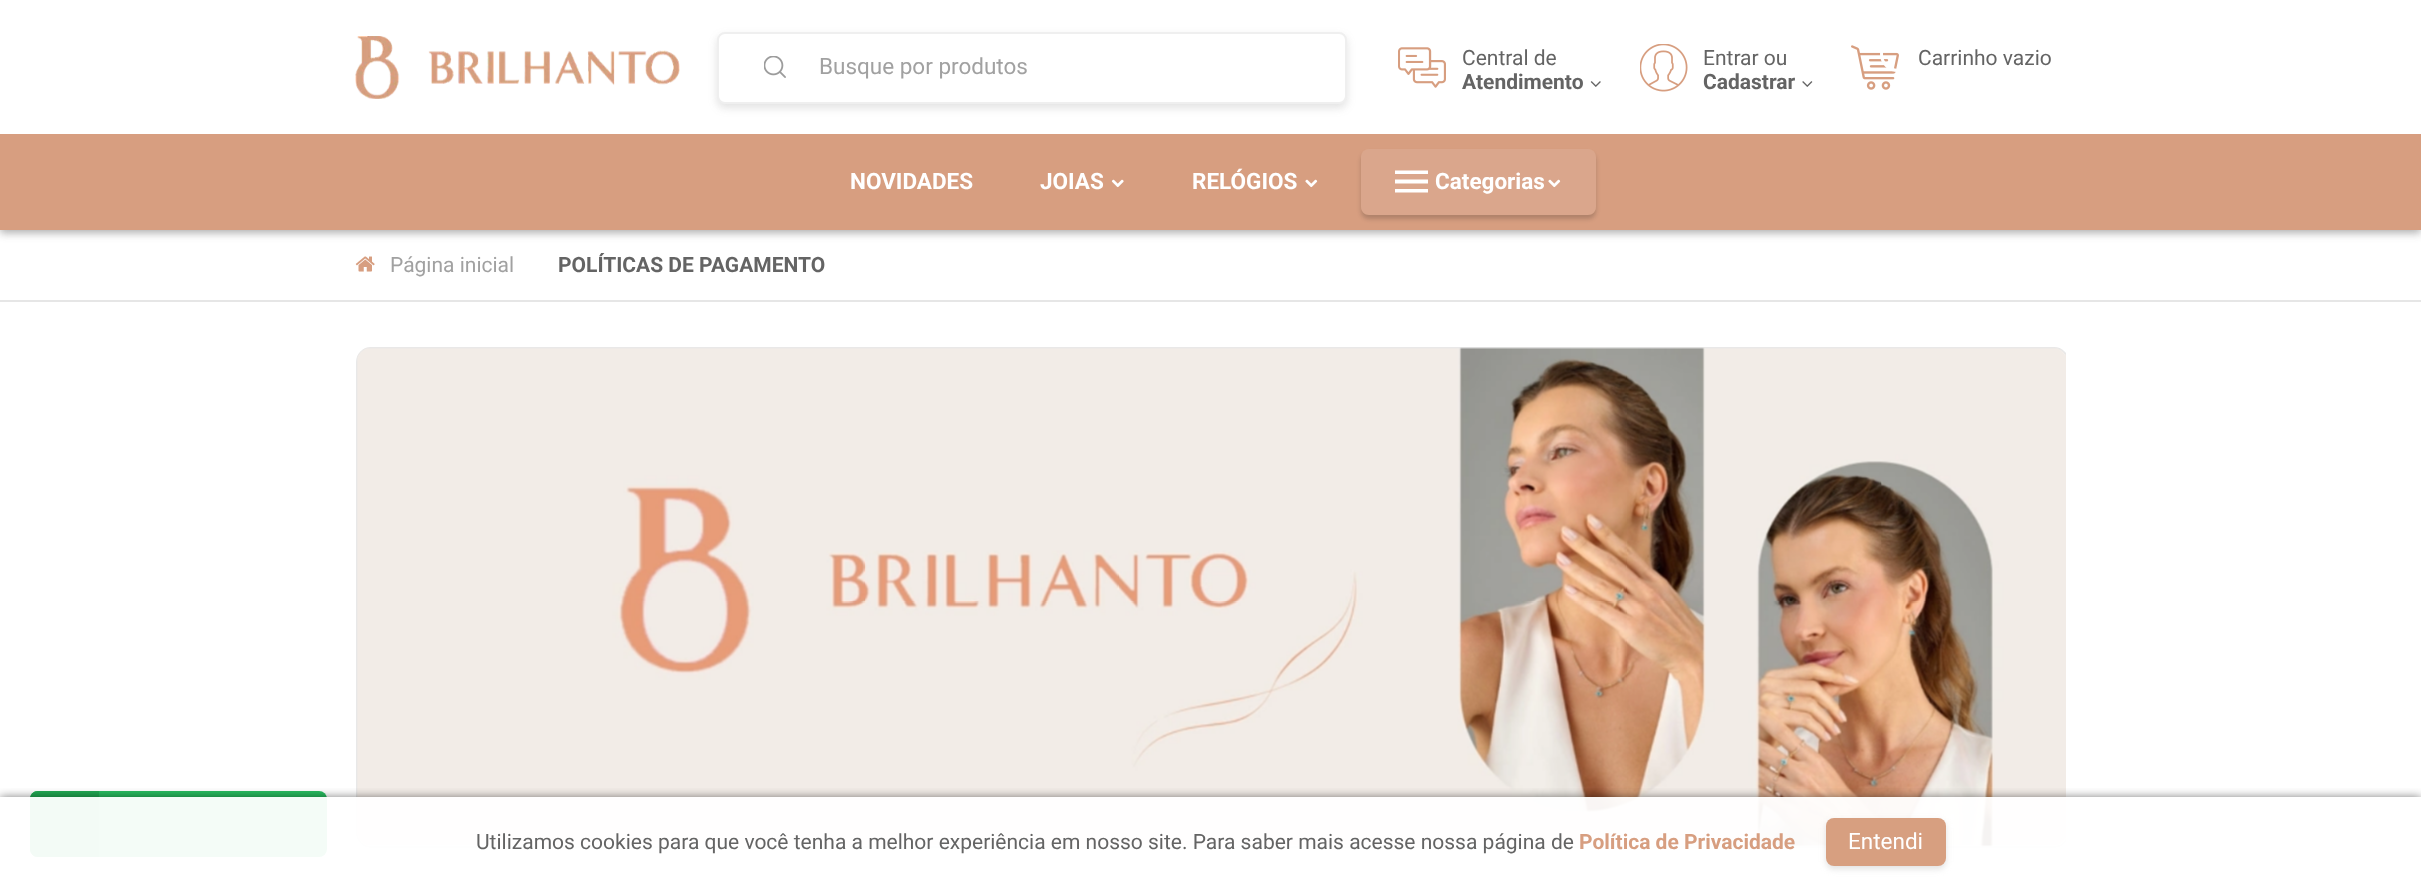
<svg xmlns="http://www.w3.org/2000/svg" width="2421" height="886">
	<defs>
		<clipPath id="clip1"><path d="M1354 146H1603V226H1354ZM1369 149H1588C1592.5 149 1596 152.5 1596 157V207C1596 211.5 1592.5 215 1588 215H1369C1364.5 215 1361 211.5 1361 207V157C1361 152.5 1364.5 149 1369 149Z" clip-rule="evenodd" /></clipPath>
		<clipPath id="clip2"><rect x="356" y="347" width="1710" height="501" /></clipPath>
		<clipPath id="clip3"><rect x="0" y="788" width="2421" height="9" /></clipPath>
	</defs>
	<rect width="100%" height="100%" fill="#FFFFFF" />
	<rect x="0" y="3" width="2421" height="230" fill="#2B2B2B" fill-opacity="0.38" filter="blur(4.5px)" />
	<rect x="0" y="0" width="2421" height="134" fill="#FFFFFF" />
	<image x="355" y="36" width="325" height="63" href="assets/img1.png" />
	<rect x="717" y="36" width="630" height="72" rx="8" fill="#646464" fill-opacity="0.19" filter="blur(4.5px)" />
	<rect x="718" y="33" width="628" height="70" rx="7" fill="#FFFFFF" stroke="#EFEFEF" stroke-width="2" />
	<image x="764" y="56" width="22" height="22" href="assets/img2.png" />
	<text x="819" y="74" font-family="Roboto" font-size="22.5" fill="#A1A1A1">Busque por produtos</text>
	<image x="1398" y="47" width="48" height="41" href="assets/img3.png" />
	<text x="1462" y="65" font-family="Roboto" font-size="21" fill="#646464">Central de</text>
	<text x="1462" y="89" font-family="Roboto" font-size="21" font-weight="700" fill="#646464">Atendimento</text>
	<image x="1590" y="81" width="11" height="6" href="assets/img4.png" />
	<image x="1640" y="44" width="48" height="48" href="assets/img5.png" />
	<text x="1703" y="65" font-family="Roboto" font-size="21" fill="#646464">Entrar ou</text>
	<text x="1703" y="89" font-family="Roboto" font-size="21" font-weight="700" fill="#646464">Cadastrar</text>
	<image x="1802" y="81" width="11" height="6" href="assets/img6.png" />
	<image x="1851" y="45" width="48" height="45" href="assets/img7.png" />
	<circle cx="1898" cy="54" r="16.5" fill="none" stroke="#FFFFFF" stroke-width="3" />
	<text x="1918" y="65" font-family="Roboto" font-size="21" fill="#646464">Carrinho vazio</text>
	<rect x="0" y="134" width="2421" height="96" fill="#D79E80" />
	<g font-family="Roboto" font-size="22.5" font-weight="700" fill="#FFFFFF">
		<text x="850" y="189">NOVIDADES</text>
		<text x="1040" y="189">JOIAS</text>
	</g>
	<image x="1111" y="179" width="13" height="9" href="assets/img8.png" />
	<text x="1192" y="189" font-family="Roboto" font-size="22.5" font-weight="700" fill="#FFFFFF">RELÓGIOS</text>
	<image x="1305" y="179" width="13" height="9" href="assets/img9.png" />
	<g clip-path="url(#clip1)">
		<rect x="1361" y="153" width="235" height="66" rx="8" fill="#141414" fill-opacity="0.2" filter="blur(2px)" />
	</g>
	<rect x="1361" y="149" width="235" height="66" rx="8" fill="#F4F4F4" fill-opacity="0.1" />
	<path d="M1395 192.5H1428V189H1395ZM1395 183.5H1428V179.5H1395ZM1395 170.5V174H1428V170.5Z" fill="#FFFFFF" />
	<text x="1435" y="189" font-family="Roboto" font-size="22.5" font-weight="700" fill="#FFFFFF">Categorias</text>
	<image x="1548" y="179" width="13" height="9" href="assets/img10.png" />
	<rect x="0" y="300" width="2421" height="2" fill="#E6E6E6" />
	<image x="355" y="256" width="20" height="16" href="assets/img11.png" />
	<text x="390" y="272" font-family="Roboto" font-size="21" fill="#A1A1A1">Página inicial</text>
	<text x="558" y="272" font-family="Roboto" font-size="21" font-weight="700" fill="#646464">POLÍTICAS DE PAGAMENTO</text>
	<g clip-path="url(#clip2)">
		<rect x="357" y="348" width="1711" height="499" rx="14" fill="none" stroke="#E8E8E8" stroke-width="2" />
	</g>
	<image x="357" y="347" width="1709" height="500" href="assets/img12.png" />
	<rect x="30" y="791" width="297" height="66" rx="8" fill="#28BD60" />
	<path d="M38 791H99V857H38C33.5 857 30 853.5 30 849V799C30 794.5 33.5 791 38 791Z" fill="#21A953" />
	<g clip-path="url(#clip3)">
		<rect x="0" y="797" width="2421" height="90" fill="#000000" fill-opacity="0.5" filter="blur(5px)" />
	</g>
	<rect x="30" y="797" width="2036" height="60" fill="#FFFFFF" fill-opacity="0.95" />
	<text x="476" y="849" font-family="Roboto" font-size="21" fill="#646464">Utilizamos cookies para que você tenha a melhor experiência em nosso site. Para saber mais acesse nossa página de</text>
	<text x="1579" y="849" font-family="Roboto" font-size="21" font-weight="700" fill="#D79E80">Política de Privacidade</text>
	<rect x="1826" y="821" width="120" height="48" rx="8" fill="#CBCBCB" fill-opacity="0.55" filter="blur(3px)" />
	<rect x="1826" y="818" width="120" height="48" rx="8" fill="#D79F80" />
	<text x="1848" y="849" font-family="Roboto" font-size="22.5" fill="#FFFFFF">Entendi</text>
</svg>
